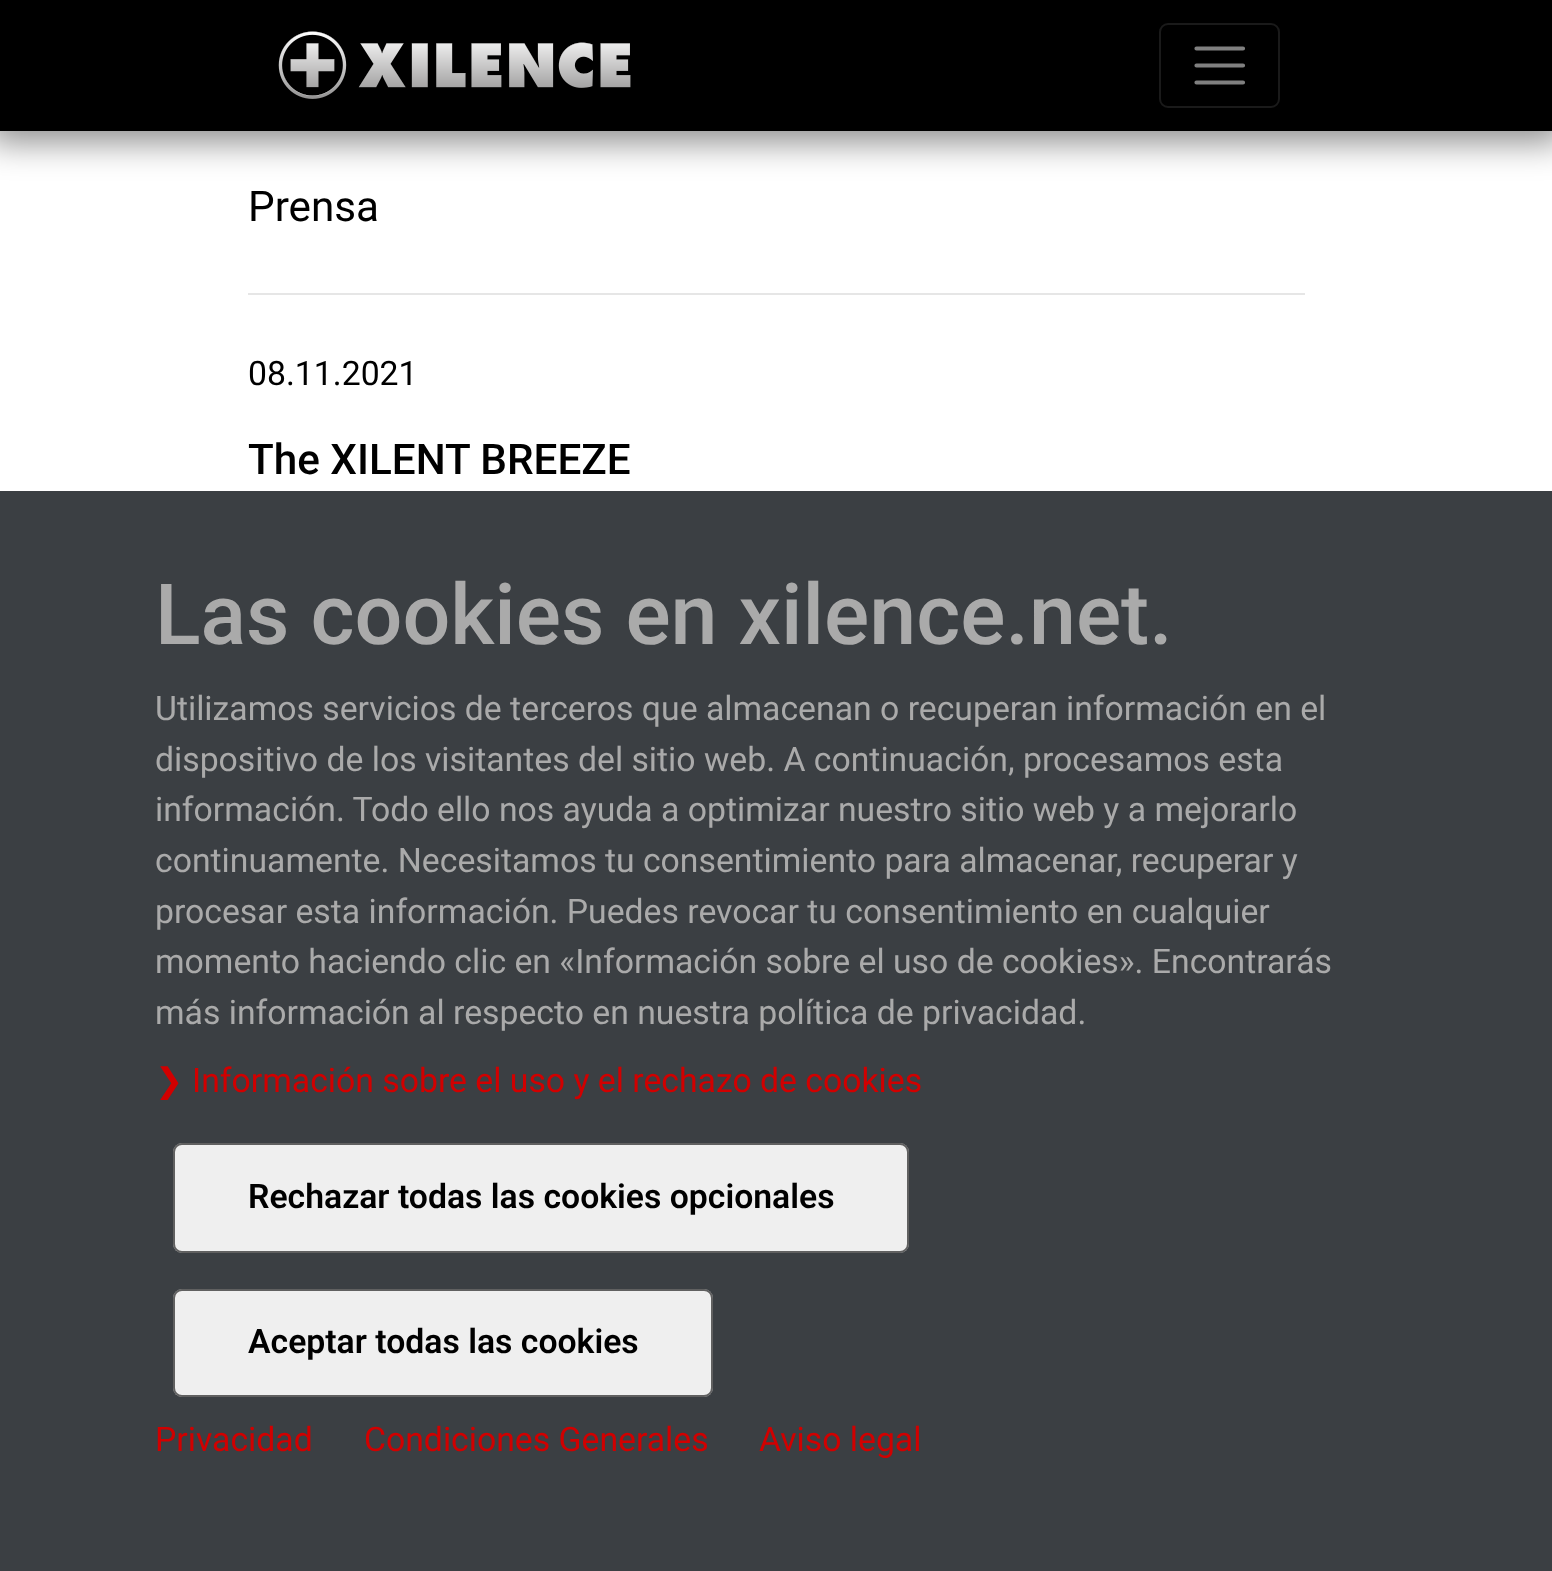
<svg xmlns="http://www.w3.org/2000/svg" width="1552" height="1571">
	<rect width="100%" height="100%" fill="#FFFFFF" />
	<rect x="-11" y="-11" width="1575" height="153" fill="#000000" fill-opacity="0.45" filter="blur(17px)" />
	<rect x="0" y="0" width="1552" height="131" fill="#000000" />
	<image x="278" y="31" width="353" height="68" href="assets/img1.png" />
	<rect x="1160" y="24" width="119" height="83" rx="8" fill="none" stroke="#1A1A1A" stroke-width="2" />
	<path d="M1196.5 48.5H1243M1196.5 65.5H1243M1196.5 82.5H1243" fill="none" stroke="#808080" stroke-width="4.2" stroke-linecap="round" />
	<text x="248" y="221" font-family="Roboto" font-size="42.25" fill="#000000">Prensa</text>
	<rect x="248" y="293" width="1057" height="2" fill="#E6E6E6" />
	<text x="248" y="385" font-family="Roboto" font-size="33.75" fill="#000000">08.11.2021</text>
	<text x="248" y="474" font-family="Roboto" font-size="42.25" font-weight="500" fill="#000000">The XILENT BREEZE</text>
	<rect x="0" y="491" width="1552" height="1080" fill="#3B3F43" />
	<text x="155" y="644" font-family="Roboto" font-size="84.4" font-weight="500" fill="#AAAAAA">Las cookies en xilence.net.</text>
	<g font-family="Roboto" font-size="33.75" fill="#AAAAAA">
		<text x="155" y="720">Utilizamos servicios de terceros que almacenan o recuperan información en el</text>
		<text x="155" y="771">dispositivo de los visitantes del sitio web. A continuación, procesamos esta</text>
		<text x="155" y="821">información. Todo ello nos ayuda a optimizar nuestro sitio web y a mejorarlo</text>
		<text x="155" y="872">continuamente. Necesitamos tu consentimiento para almacenar, recuperar y</text>
		<text x="155" y="923">procesar esta información. Puedes revocar tu consentimiento en cualquier</text>
		<text x="155" y="973">momento haciendo clic en «Información sobre el uso de cookies». Encontrarás</text>
		<text x="155" y="1024">más información al respecto en nuestra política de privacidad.</text>
	</g>
	<text x="155" y="1092" font-family="DejaVu Sans" font-size="33.75" fill="#D10000">❯</text>
	<text x="192" y="1092" font-family="Roboto" font-size="33.75" fill="#D10000">Información sobre el uso y el rechazo de cookies</text>
	<rect x="173" y="1143" width="736" height="110" rx="9" fill="#EFEFEF" />
	<rect x="174" y="1144" width="734" height="108" rx="8" fill="none" stroke="#000000" stroke-opacity="0.6" stroke-width="2" />
	<text x="248" y="1208" font-family="Roboto" font-size="33.75" font-weight="600" fill="#000000">Rechazar todas las cookies opcionales</text>
	<rect x="173" y="1289" width="540" height="108" rx="9" fill="#EFEFEF" />
	<rect x="174" y="1290" width="538" height="106" rx="8" fill="none" stroke="#000000" stroke-opacity="0.6" stroke-width="2" />
	<text x="248" y="1353" font-family="Roboto" font-size="33.75" font-weight="600" fill="#000000">Aceptar todas las cookies</text>
	<g font-family="Roboto" font-size="33.75" fill="#D10000">
		<text x="155" y="1451">Privacidad</text>
		<text x="364" y="1451">Condiciones Generales</text>
		<text x="759" y="1451">Aviso legal</text>
	</g>
</svg>
